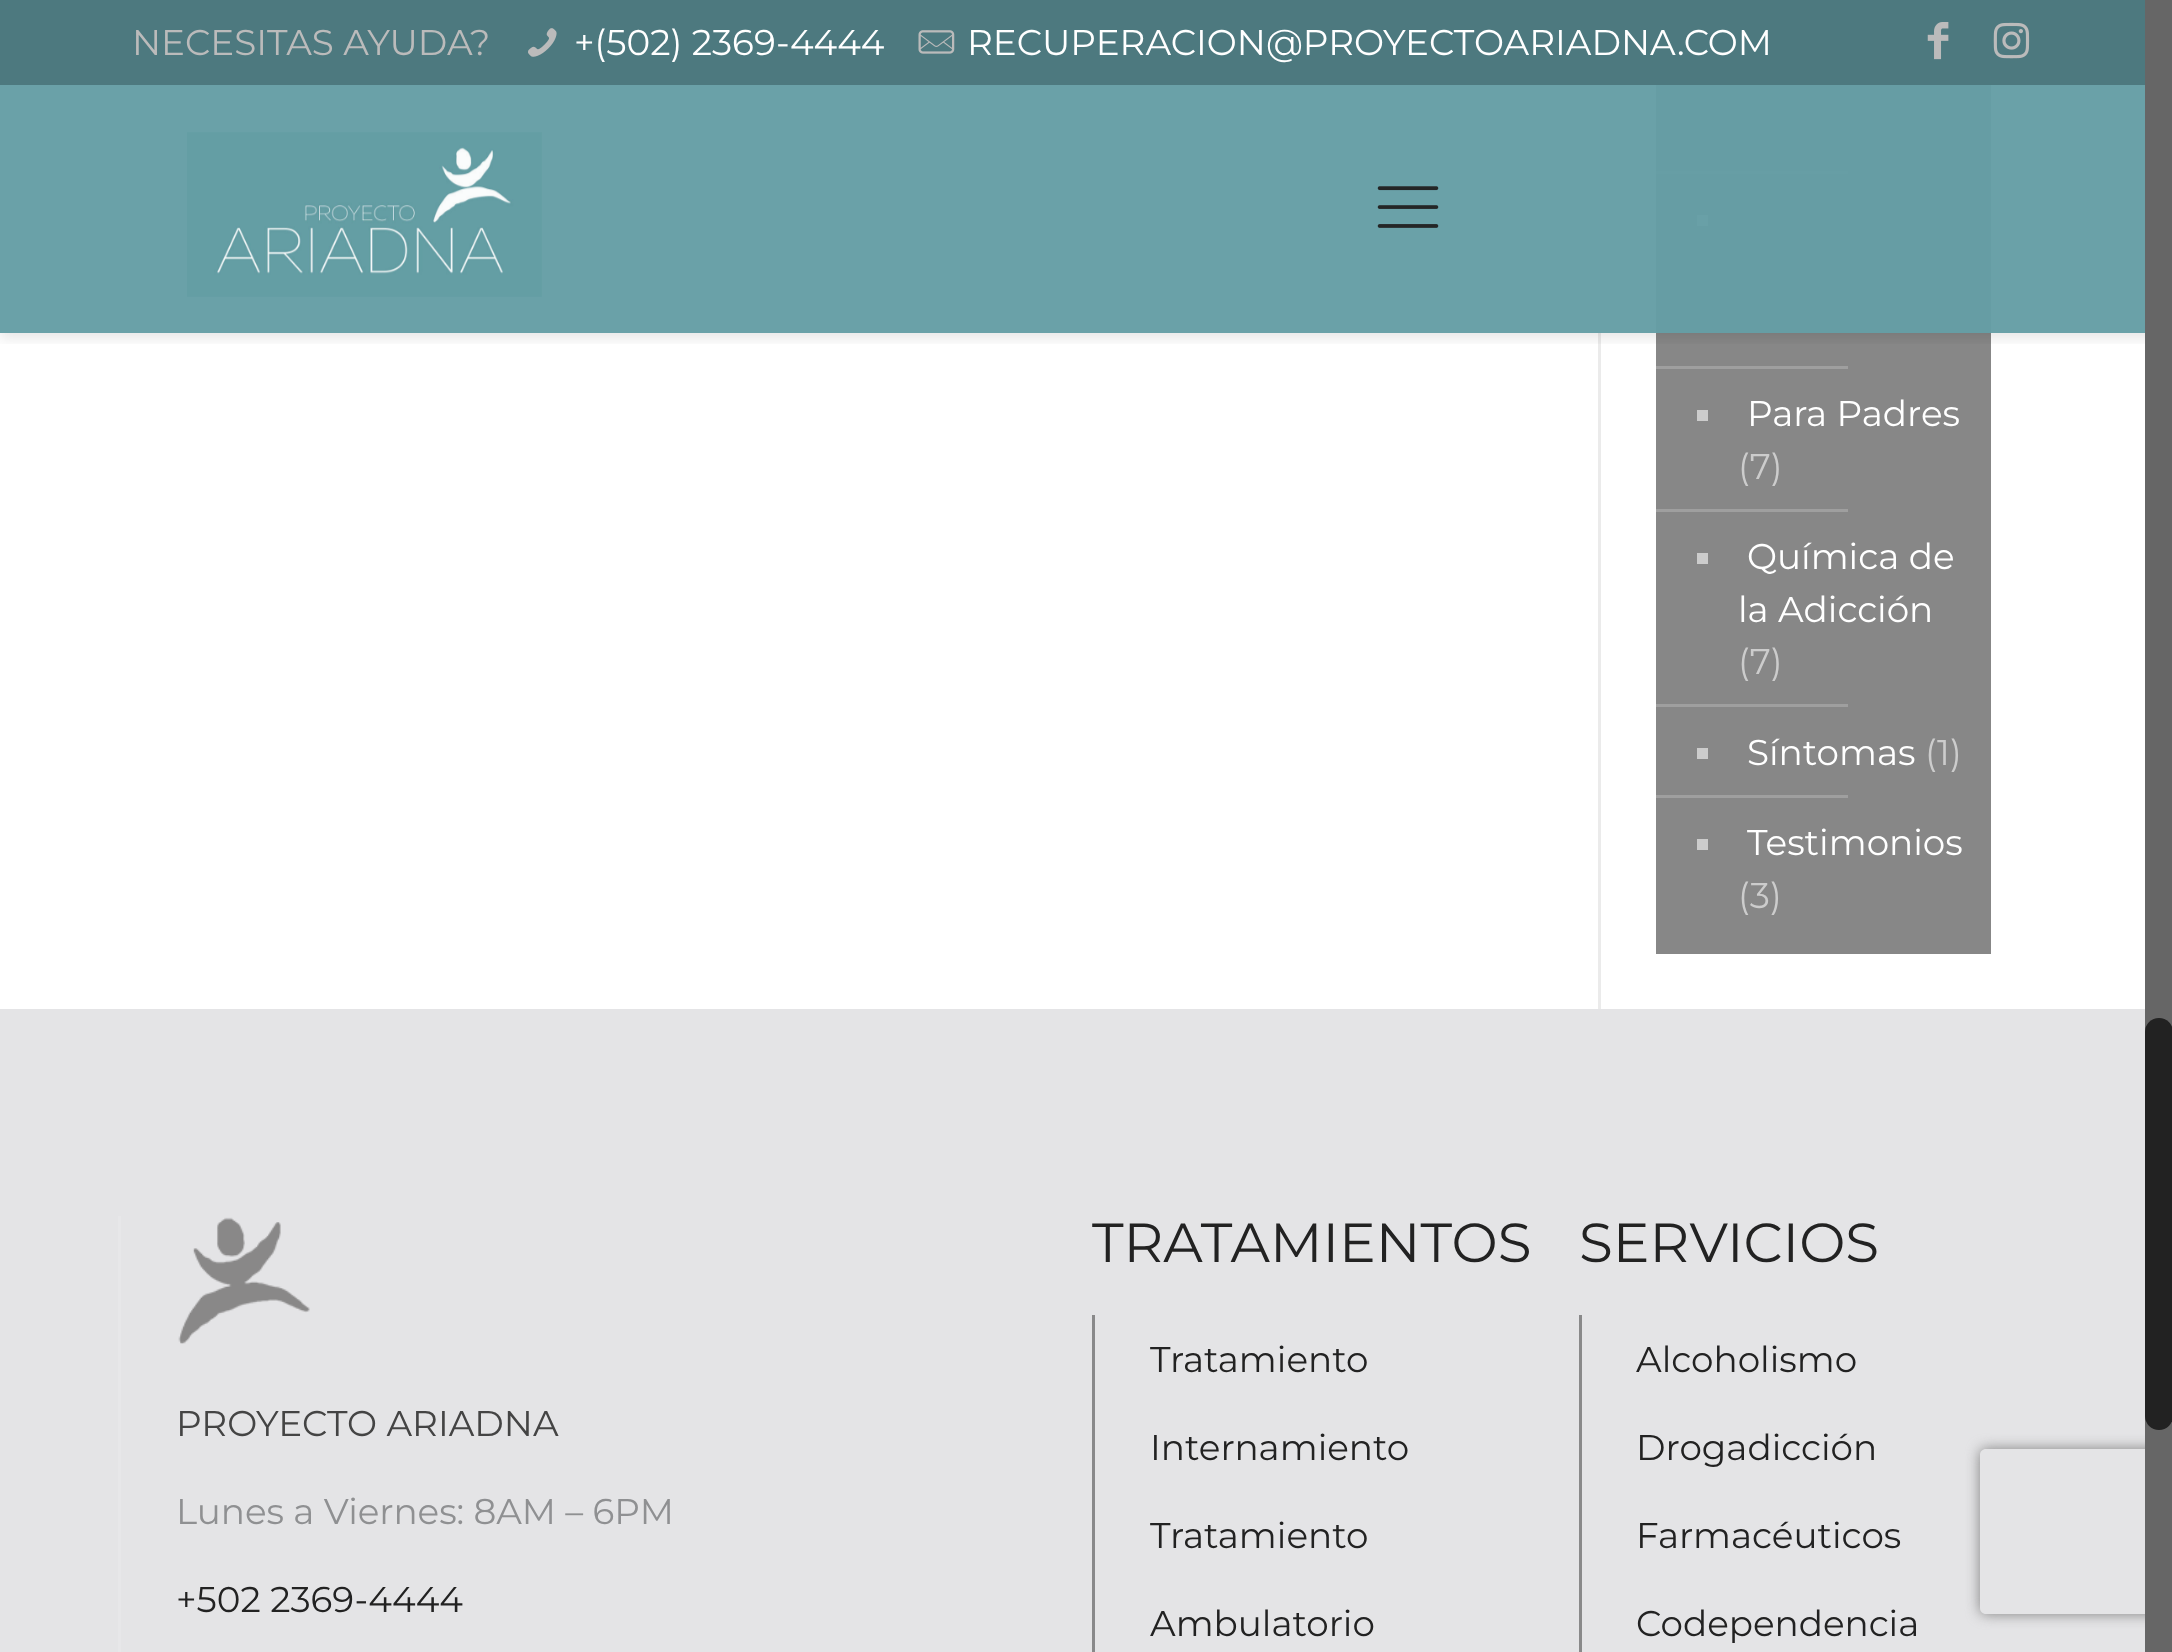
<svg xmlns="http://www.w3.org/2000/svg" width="2172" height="1652">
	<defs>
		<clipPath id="clip1"><rect x="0" y="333" width="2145" height="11" /></clipPath>
		<clipPath id="clip2"><path d="M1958 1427H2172V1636H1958ZM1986 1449H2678C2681.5 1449 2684 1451.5 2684 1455V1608C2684 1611.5 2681.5 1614 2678 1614H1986C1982.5 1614 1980 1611.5 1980 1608V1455C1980 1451.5 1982.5 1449 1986 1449Z" clip-rule="evenodd" /></clipPath>
	</defs>
	<rect width="100%" height="100%" fill="#FFFFFF" />
	<rect x="0" y="0" width="2145" height="85" fill="#4D797F" />
	<text x="132" y="55" font-family="Montserrat" font-size="35.75" fill="#BBBBBB">NECESITAS AYUDA?</text>
	<image x="528" y="28" width="29" height="29" href="assets/img1.png" />
	<text x="574" y="55" font-family="Montserrat" font-size="35.75" fill="#FFFFFF">+(502) 2369-4444</text>
	<image x="918" y="30" width="37" height="24" href="assets/img2.png" />
	<text x="967" y="55" font-family="Montserrat" font-size="35.75" fill="#FFFFFF">RECUPERACION@PROYECTOARIADNA.COM</text>
	<image x="1927" y="22" width="22" height="38" href="assets/img3.png" />
	<image x="1993" y="22" width="37" height="37" href="assets/img4.png" />
	<rect x="1598" y="85" width="3" height="924" fill="#EBEBEB" />
	<rect x="1656" y="85" width="335" height="869" fill="#878787" />
	<rect x="1656" y="171" width="192" height="3" fill="#9F9F9F" />
	<rect x="1697" y="215" width="11" height="11" fill="#CCCCCC" />
	<g clip-path="url(#clip1)">
		<rect x="0" y="91" width="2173" height="247" fill="#000000" fill-opacity="0.1" filter="blur(7px)" />
	</g>
	<rect x="0" y="85" width="2145" height="248" fill="#659EA5" fill-opacity="0.97" />
	<image x="187" y="132" width="355" height="165" href="assets/img5.png" />
	<image x="1377" y="186" width="62" height="42" href="assets/img6.png" />
	<rect x="1656" y="366" width="192" height="3" fill="#9F9F9F" />
	<rect x="1697" y="410" width="11" height="11" fill="#CCCCCC" />
	<text x="1747" y="426" font-family="Montserrat" font-size="35.75" fill="#FFFFFF">Para Padres</text>
	<text x="1738" y="479" font-family="Montserrat" font-size="35.75" fill="#CCCCCC">(7)</text>
	<rect x="1656" y="509" width="192" height="3" fill="#9F9F9F" />
	<rect x="1697" y="553" width="11" height="11" fill="#CCCCCC" />
	<g font-family="Montserrat" font-size="35.75" fill="#FFFFFF">
		<text x="1747" y="569">Química de</text>
		<text x="1738" y="622">la Adicción</text>
	</g>
	<text x="1738" y="674" font-family="Montserrat" font-size="35.75" fill="#CCCCCC">(7)</text>
	<rect x="1656" y="704" width="192" height="3" fill="#9F9F9F" />
	<rect x="1697" y="748" width="11" height="11" fill="#CCCCCC" />
	<text x="1747" y="765" font-family="Montserrat" font-size="35.75" fill="#FFFFFF">Síntomas</text>
	<text x="1925" y="765" font-family="Montserrat" font-size="35.75" fill="#CCCCCC">(1)</text>
	<rect x="1656" y="795" width="192" height="3" fill="#9F9F9F" />
	<rect x="1697" y="839" width="11" height="11" fill="#CCCCCC" />
	<text x="1747" y="855" font-family="Montserrat" font-size="35.75" fill="#FFFFFF">Testimonios</text>
	<text x="1738" y="908" font-family="Montserrat" font-size="35.75" fill="#CCCCCC">(3)</text>
	<rect x="0" y="1009" width="2145" height="643" fill="#E4E4E6" />
	<rect x="118" y="1216" width="3" height="436" fill="#E7E7E9" />
	<image x="178" y="1217" width="132" height="127" href="assets/img7.png" />
	<text x="176" y="1436" font-family="Montserrat" font-size="35.75" fill="#444444">PROYECTO ARIADNA</text>
	<text x="176" y="1524" font-family="Montserrat" font-size="35.75" fill="#8F9092">Lunes a Viernes: 8AM – 6PM</text>
	<text x="176" y="1612" font-family="Montserrat" font-size="35.75" fill="#222222">+502 2369-4444</text>
	<text x="1092" y="1262" font-family="Montserrat" font-size="55" fill="#222222">TRATAMIENTOS</text>
	<rect x="1092" y="1315" width="3" height="337" fill="#89898A" />
	<g font-family="Montserrat" font-size="35.75" fill="#222222">
		<text x="1150" y="1372">Tratamiento</text>
		<text x="1150" y="1460">Internamiento</text>
		<text x="1150" y="1548">Tratamiento</text>
		<text x="1150" y="1636">Ambulatorio</text>
	</g>
	<text x="1579" y="1262" font-family="Montserrat" font-size="55" fill="#222222">SERVICIOS</text>
	<rect x="1579" y="1315" width="3" height="337" fill="#89898A" />
	<g font-family="Montserrat" font-size="35.75" fill="#222222">
		<text x="1636" y="1372">Alcoholismo</text>
		<text x="1636" y="1460">Drogadicción</text>
		<text x="1636" y="1548">Farmacéuticos</text>
		<text x="1636" y="1636">Codependencia</text>
	</g>
	<g clip-path="url(#clip2)">
		<rect x="1980" y="1449" width="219" height="165" rx="6" fill="#808080" filter="blur(7px)" />
	</g>
	<rect x="2145" y="0" width="27" height="1652" fill="#666666" />
	<rect x="2145" y="1018" width="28" height="412" rx="14" fill="#222222" />
</svg>
